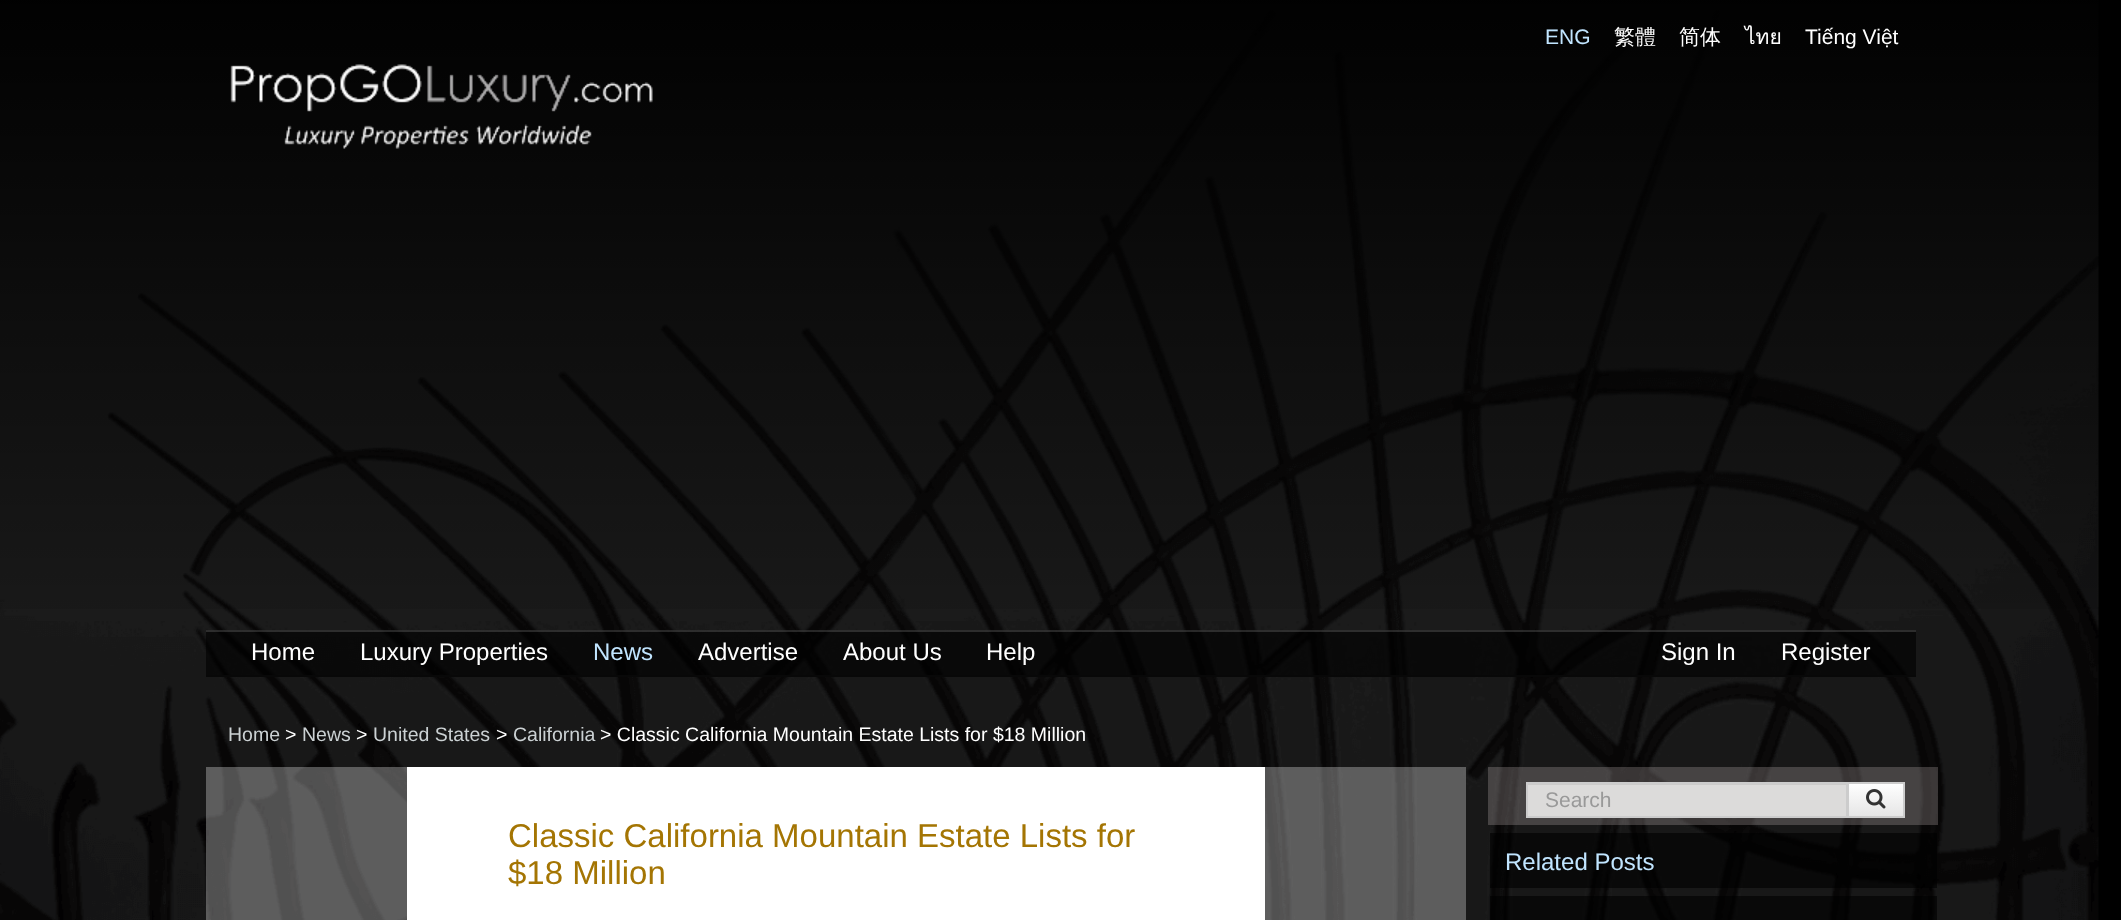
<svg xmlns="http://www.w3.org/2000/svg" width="2121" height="920">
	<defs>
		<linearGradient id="g1" gradientUnits="userSpaceOnUse" x1="1061" y1="0" x2="1061" y2="677"><stop offset="0" stop-color="#000000" stop-opacity="0.95" /><stop offset="1" stop-color="#000000" stop-opacity="0" /></linearGradient>
		<linearGradient id="g2" gradientUnits="userSpaceOnUse" x1="1876" y1="783" x2="1876" y2="816"><stop offset="0" stop-color="#FFFFFF" /><stop offset="1" stop-color="#E6E6E6" /></linearGradient>
	</defs>
	<rect width="100%" height="100%" fill="#000000" />
	<image x="0" y="0" width="2099" height="920" href="assets/img1.png" />
	<rect x="0" y="0" width="2099" height="609" fill="url(#g1)" />
	<text x="1545" y="44" font-family="Liberation Sans" font-size="21" fill="#C1E5FF">ENG</text>
	<g font-family="WenQuanYi Zen Hei" font-size="21" font-weight="500" fill="#FFFFFF">
		<text x="1614" y="44">繁體</text>
		<text x="1679" y="44">简体</text>
	</g>
	<text x="1745" y="44" font-family="Loma" font-size="21" fill="#FFFFFF">ไทย</text>
	<text x="1805" y="44" font-family="Liberation Sans" font-size="21" fill="#FFFFFF">Tiếng Việt</text>
	<image x="230" y="64" width="423" height="85" href="assets/img2.png" />
	<rect x="206" y="630" width="1710" height="45" fill="#000000" fill-opacity="0.6" />
	<rect x="206" y="630" width="1710" height="2" fill="#FFFFFF" fill-opacity="0.15" />
	<rect x="206" y="675" width="1710" height="2" fill="#080808" />
	<g font-family="Liberation Sans" font-size="24" fill="#FFFFFF">
		<text x="251" y="660">Home</text>
		<text x="360" y="660">Luxury Properties</text>
	</g>
	<text x="593" y="660" font-family="Liberation Sans" font-size="24" fill="#C1E5FF">News</text>
	<g font-family="Liberation Sans" font-size="24" fill="#FFFFFF">
		<text x="698" y="660">Advertise</text>
		<text x="843" y="660">About Us</text>
		<text x="986" y="660">Help</text>
		<text x="1661" y="660">Sign In</text>
		<text x="1781" y="660">Register</text>
	</g>
	<text x="228" y="741" font-family="Liberation Sans" font-size="19.5" fill="#CBD1D3">Home</text>
	<text x="285" y="741" font-family="Liberation Sans" font-size="19.5" fill="#FFFFFF">&gt;</text>
	<text x="302" y="741" font-family="Liberation Sans" font-size="19.5" fill="#CBD1D3">News</text>
	<text x="356" y="741" font-family="Liberation Sans" font-size="19.5" fill="#FFFFFF">&gt;</text>
	<text x="373" y="741" font-family="Liberation Sans" font-size="19.5" fill="#CBD1D3">United States</text>
	<text x="496" y="741" font-family="Liberation Sans" font-size="19.5" fill="#FFFFFF">&gt;</text>
	<text x="513" y="741" font-family="Liberation Sans" font-size="19.5" fill="#CBD1D3">California</text>
	<text x="600" y="741" font-family="Liberation Sans" font-size="19.5" fill="#FFFFFF">&gt; Classic California Mountain Estate Lists for $18 Million</text>
	<rect x="206" y="767" width="1260" height="153" fill="#FFFFFF" fill-opacity="0.3" />
	<rect x="407" y="767" width="858" height="153" fill="#FFFFFF" />
	<g font-family="Liberation Sans" font-size="33" fill="#A47503">
		<text x="508" y="847">Classic California Mountain Estate Lists for</text>
		<text x="508" y="884">$18 Million</text>
	</g>
	<rect x="1488" y="767" width="450" height="58" fill="#EBE0E0" fill-opacity="0.22" />
	<rect x="1528" y="785" width="318" height="31" fill="#DCDBDA" />
	<rect x="1527" y="784" width="320" height="1" fill="#CCCBCA" />
	<rect x="1849" y="784" width="54" height="32" fill="url(#g2)" />
	<rect x="1848" y="783" width="56" height="34" fill="none" stroke="#CCCCCC" stroke-width="2" />
	<rect x="1527" y="783" width="320" height="34" fill="none" stroke="#CCCCCC" stroke-width="2" />
	<text x="1545" y="807" font-family="Liberation Sans" font-size="21" fill="#999999">Search</text>
	<image x="1866" y="789" width="20" height="20" href="assets/img3.png" />
	<rect x="1490" y="833" width="447" height="55" fill="#000000" fill-opacity="0.6" />
	<text x="1505" y="870" font-family="Liberation Sans" font-size="24" fill="#C1E5FF">Related Posts</text>
	<rect x="1490" y="896" width="447" height="24" fill="#000000" fill-opacity="0.6" />
</svg>
